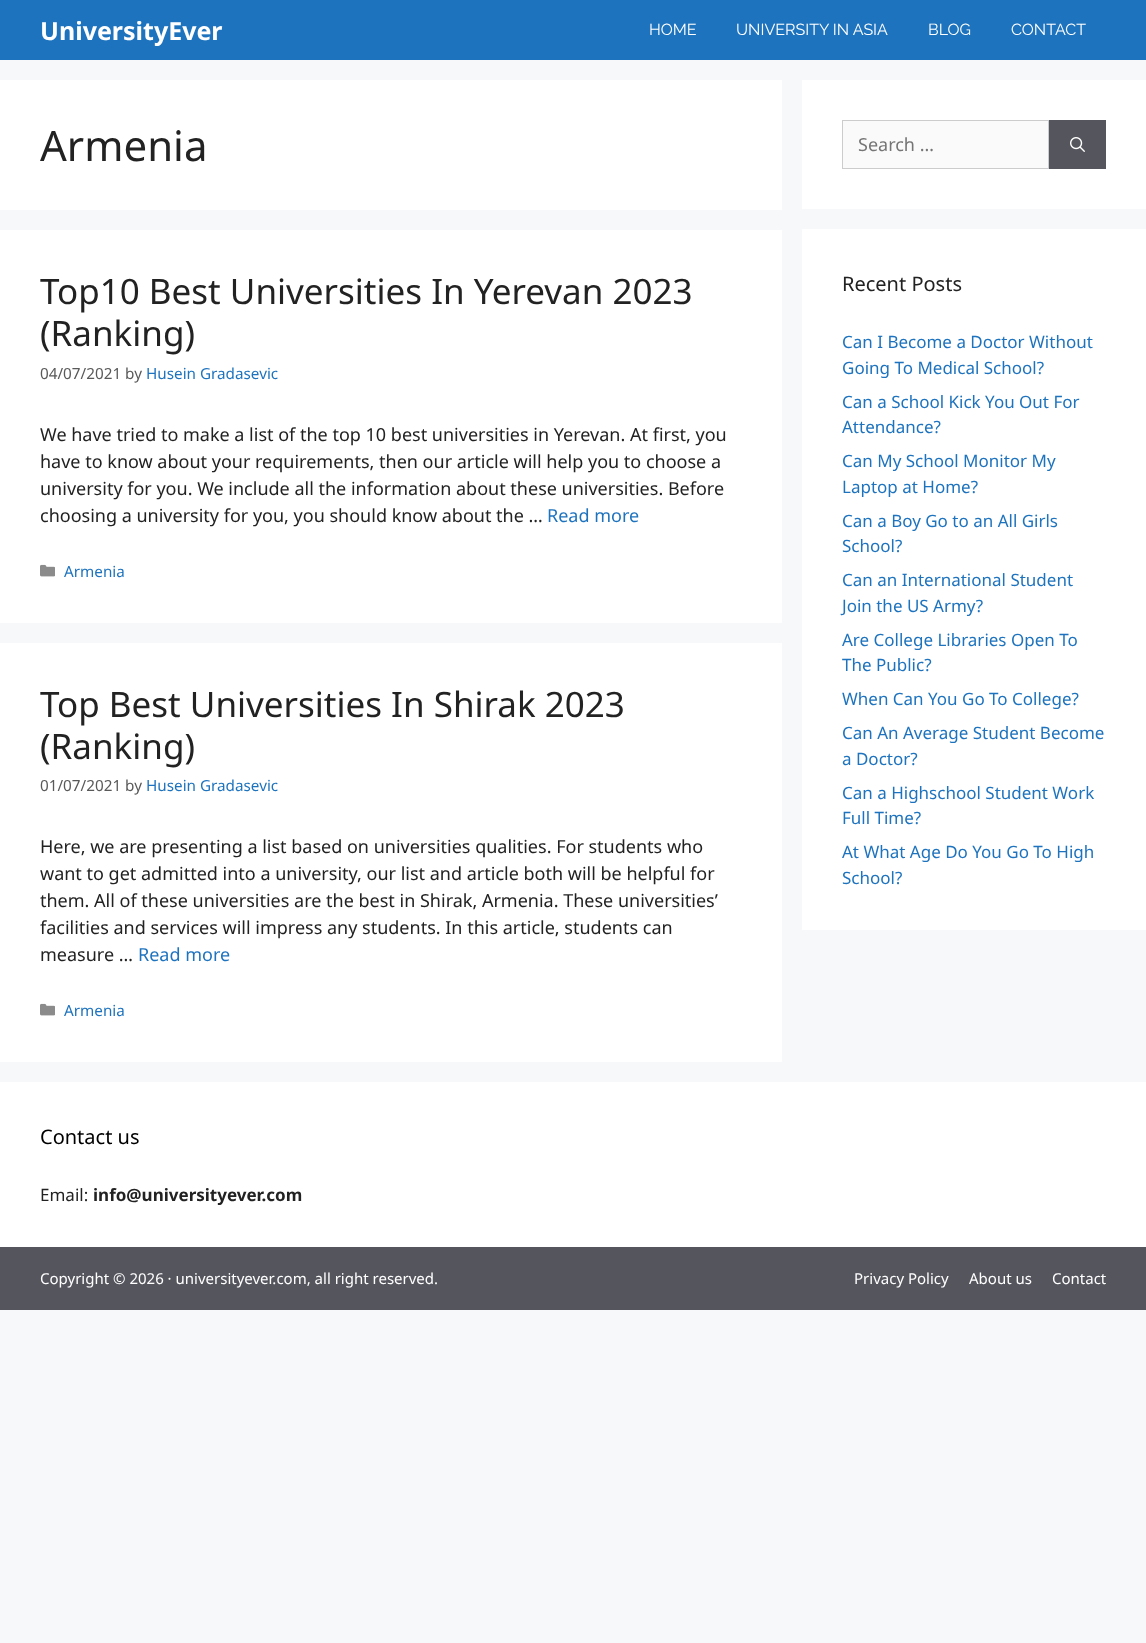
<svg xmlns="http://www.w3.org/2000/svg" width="1146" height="1643">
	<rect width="100%" height="100%" fill="#F7F8F9" />
	<rect x="0" y="0" width="1146" height="60" fill="#1E73BE" />
	<text x="40" y="40" font-family="Noto Sans" font-size="25" font-weight="700" fill="#FFFFFF">UniversityEver</text>
	<g font-family="Raleway" font-size="16" fill="#FFFFFF">
		<text x="649" y="35">HOME</text>
		<text x="736" y="35">UNIVERSITY IN ASIA</text>
		<text x="928" y="35">BLOG</text>
		<text x="1011" y="35">CONTACT</text>
	</g>
	<rect x="0" y="80" width="782" height="130" fill="#FFFFFF" />
	<text x="40" y="161" font-family="Noto Sans" font-size="42" fill="#222222">Armenia</text>
	<rect x="0" y="230" width="782" height="393" fill="#FFFFFF" />
	<g font-family="Noto Sans" font-size="35" fill="#222222">
		<text x="40" y="304">Top10 Best Universities In Yerevan 2023</text>
		<text x="40" y="346">(Ranking)</text>
	</g>
	<text x="40" y="379" font-family="Noto Sans" font-size="15.25" fill="#595959">04/07/2021 by</text>
	<text x="146" y="379" font-family="Noto Sans" font-size="15.25" fill="#1E73BE">Husein Gradasevic</text>
	<g font-family="Noto Sans" font-size="18" fill="#222222">
		<text x="40" y="441">We have tried to make a list of the top 10 best universities in Yerevan. At first, you</text>
		<text x="40" y="468">have to know about your requirements, then our article will help you to choose a</text>
		<text x="40" y="495">university for you. We include all the information about these universities. Before</text>
		<text x="40" y="522">choosing a university for you, you should know about the …</text>
	</g>
	<text x="547" y="522" font-family="Noto Sans" font-size="18" fill="#1E73BE">Read more</text>
	<image x="40" y="564" width="15" height="13" href="assets/img1.png" />
	<text x="64" y="577" font-family="Noto Sans" font-size="15.25" fill="#1E73BE">Armenia</text>
	<rect x="0" y="643" width="782" height="419" fill="#FFFFFF" />
	<g font-family="Noto Sans" font-size="35" fill="#222222">
		<text x="40" y="717">Top Best Universities In Shirak 2023</text>
		<text x="40" y="759">(Ranking)</text>
	</g>
	<text x="40" y="791" font-family="Noto Sans" font-size="15.25" fill="#595959">01/07/2021 by</text>
	<text x="146" y="791" font-family="Noto Sans" font-size="15.25" fill="#1E73BE">Husein Gradasevic</text>
	<g font-family="Noto Sans" font-size="18" fill="#222222">
		<text x="40" y="853">Here, we are presenting a list based on universities qualities. For students who</text>
		<text x="40" y="880">want to get admitted into a university, our list and article both will be helpful for</text>
		<text x="40" y="907">them. All of these universities are the best in Shirak, Armenia. These universities’</text>
		<text x="40" y="934">facilities and services will impress any students. In this article, students can</text>
		<text x="40" y="961">measure …</text>
	</g>
	<text x="138" y="961" font-family="Noto Sans" font-size="18" fill="#1E73BE">Read more</text>
	<image x="40" y="1003" width="15" height="13" href="assets/img1.png" />
	<text x="64" y="1016" font-family="Noto Sans" font-size="15.25" fill="#1E73BE">Armenia</text>
	<rect x="802" y="80" width="344" height="129" fill="#FFFFFF" />
	<rect x="842.5" y="120.5" width="206" height="48" fill="#FAFAFA" stroke="#CCCCCC" />
	<text x="858" y="151" font-family="Noto Sans" font-size="18" fill="#757575">Search …</text>
	<rect x="1049" y="120" width="57" height="49" fill="#55555E" />
	<image x="1070" y="137" width="15" height="15" href="assets/img2.png" />
	<rect x="802" y="229" width="344" height="701" fill="#FFFFFF" />
	<text x="842" y="291" font-family="Noto Sans" font-size="20" fill="#222222">Recent Posts</text>
	<g font-family="Noto Sans" font-size="17" fill="#1E73BE">
		<text x="842" y="348">Can I Become a Doctor Without</text>
		<text x="842" y="374">Going To Medical School?</text>
		<text x="842" y="408">Can a School Kick You Out For</text>
		<text x="842" y="433">Attendance?</text>
		<text x="842" y="467">Can My School Monitor My</text>
		<text x="842" y="493">Laptop at Home?</text>
		<text x="842" y="527">Can a Boy Go to an All Girls</text>
		<text x="842" y="552">School?</text>
		<text x="842" y="586">Can an International Student</text>
		<text x="842" y="612">Join the US Army?</text>
		<text x="842" y="646">Are College Libraries Open To</text>
		<text x="842" y="671">The Public?</text>
		<text x="842" y="705">When Can You Go To College?</text>
		<text x="842" y="739">Can An Average Student Become</text>
		<text x="842" y="765">a Doctor?</text>
		<text x="842" y="799">Can a Highschool Student Work</text>
		<text x="842" y="824">Full Time?</text>
		<text x="842" y="858">At What Age Do You Go To High</text>
		<text x="842" y="884">School?</text>
	</g>
	<rect x="0" y="1082" width="1146" height="165" fill="#FFFFFF" />
	<text x="40" y="1144" font-family="Noto Sans" font-size="20" fill="#000000">Contact us</text>
	<text x="40" y="1201" font-family="Noto Sans" font-size="17" fill="#222222">Email:</text>
	<text x="93" y="1201" font-family="Noto Sans" font-size="17" font-weight="700" fill="#222222">info@universityever.com</text>
	<rect x="0" y="1247" width="1146" height="63" fill="#55555E" />
	<g font-family="Noto Sans" font-size="15" fill="#FFFFFF">
		<text x="40" y="1284">Copyright © 2026 · universityever.com, all right reserved.</text>
		<text x="854" y="1284">Privacy Policy</text>
		<text x="969" y="1284">About us</text>
		<text x="1052" y="1284">Contact</text>
	</g>
</svg>
